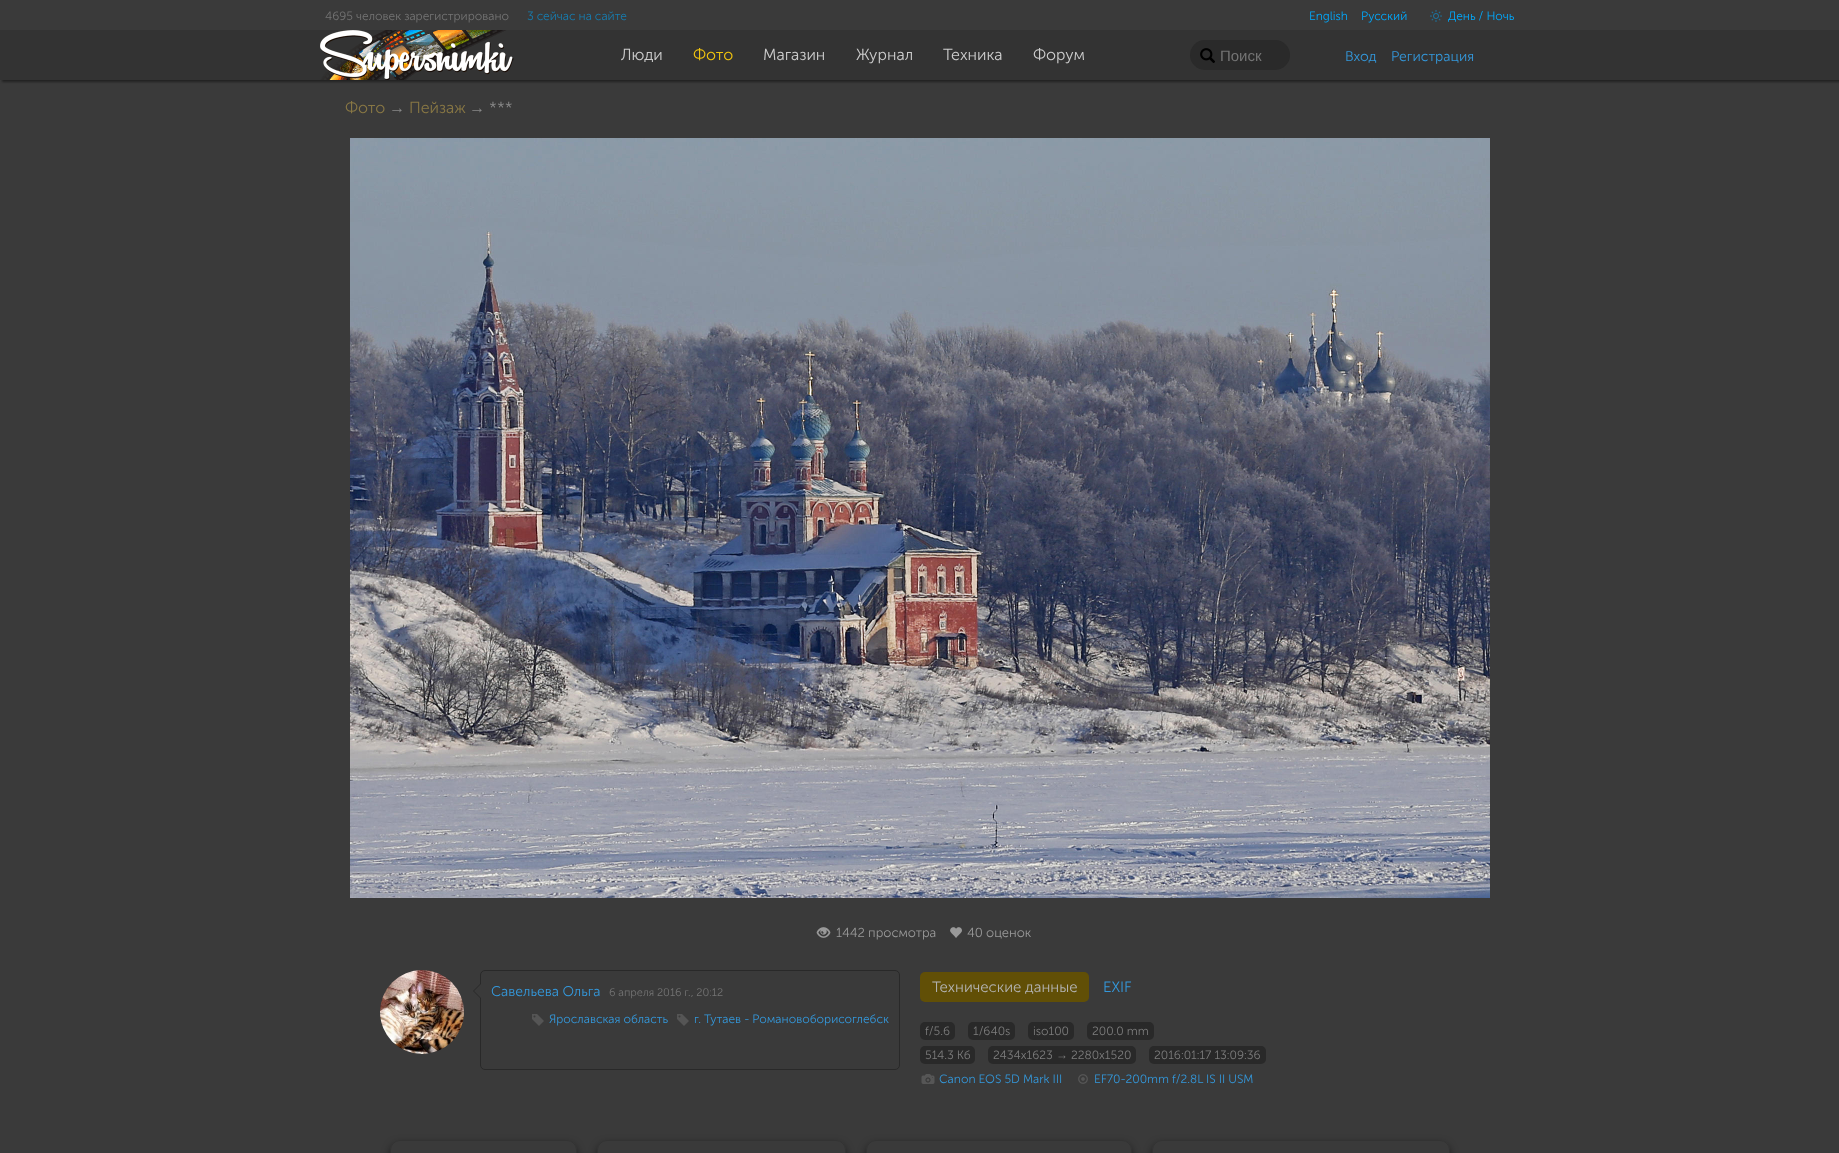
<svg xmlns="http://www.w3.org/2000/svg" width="1839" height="1153">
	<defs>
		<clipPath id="clip1"><path d="M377 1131H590V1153H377ZM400 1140H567C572.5 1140 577 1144.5 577 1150V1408C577 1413.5 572.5 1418 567 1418H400C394.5 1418 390 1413.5 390 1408V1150C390 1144.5 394.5 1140 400 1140Z" clip-rule="evenodd" /></clipPath>
		<clipPath id="clip2"><path d="M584 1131H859V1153H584ZM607 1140H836C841.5 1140 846 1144.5 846 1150V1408C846 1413.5 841.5 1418 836 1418H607C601.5 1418 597 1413.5 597 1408V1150C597 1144.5 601.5 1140 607 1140Z" clip-rule="evenodd" /></clipPath>
		<clipPath id="clip3"><path d="M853 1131H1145V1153H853ZM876 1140H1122C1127.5 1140 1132 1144.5 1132 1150V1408C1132 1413.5 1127.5 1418 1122 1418H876C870.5 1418 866 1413.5 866 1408V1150C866 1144.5 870.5 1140 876 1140Z" clip-rule="evenodd" /></clipPath>
		<clipPath id="clip4"><path d="M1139 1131H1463V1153H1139ZM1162 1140H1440C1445.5 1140 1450 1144.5 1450 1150V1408C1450 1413.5 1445.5 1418 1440 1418H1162C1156.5 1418 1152 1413.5 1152 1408V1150C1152 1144.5 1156.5 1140 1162 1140Z" clip-rule="evenodd" /></clipPath>
	</defs>
	<rect width="100%" height="100%" fill="#3A3A3A" />
	<rect x="2" y="32" width="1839" height="50" fill="#222222" filter="blur(1px)" />
	<rect x="0" y="30" width="1839" height="50" fill="#333333" />
	<text x="325" y="20" font-family="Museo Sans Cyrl" font-size="12" font-weight="300" fill="#747474">4695 человек зарегистрировано</text>
	<text x="527" y="20" font-family="Museo Sans Cyrl" font-size="12" font-weight="300" fill="#177DB0">3 сейчас на сайте</text>
	<g font-family="Museo Sans Cyrl" font-size="12" font-weight="300" fill="#00AAFF">
		<text x="1309" y="20">English</text>
		<text x="1361" y="20">Русский</text>
	</g>
	<image x="1430" y="10" width="12" height="12" href="assets/img1.png" />
	<text x="1448" y="20" font-family="Museo Sans Cyrl" font-size="12" font-weight="300" fill="#00AAFF">День / Ночь</text>
	<image x="320" y="30" width="194" height="50" href="assets/img2.png" />
	<text x="621" y="60" font-family="Museo Sans Cyrl" font-size="16" font-weight="300" fill="#CCCCCC">Люди</text>
	<text x="693" y="60" font-family="Museo Sans Cyrl" font-size="16" font-weight="300" fill="#F1C40F">Фото</text>
	<g font-family="Museo Sans Cyrl" font-size="16" font-weight="300" fill="#CCCCCC">
		<text x="763" y="60">Магазин</text>
		<text x="856" y="60">Журнал</text>
		<text x="943" y="60">Техника</text>
		<text x="1033" y="60">Форум</text>
	</g>
	<rect x="1190" y="40" width="100" height="30" rx="15" fill="#2A2A2A" />
	<image x="1200" y="48" width="15" height="15" href="assets/img3.png" />
	<text x="1220" y="61" font-family="Liberation Sans" font-size="15" fill="#747474">Поиск</text>
	<g font-family="Museo Sans Cyrl" font-size="14" font-weight="300" fill="#3498DB">
		<text x="1345" y="61">Вход</text>
		<text x="1391" y="61">Регистрация</text>
	</g>
	<g font-family="Museo Sans Cyrl" font-size="16" font-weight="300" fill="#887744">
		<text x="345" y="113">Фото</text>
		<text x="409" y="113">Пейзаж</text>
	</g>
	<text x="489" y="113" font-family="Museo Sans Cyrl" font-size="16" font-weight="300" fill="#888888">***</text>
	<g font-family="Liberation Sans" font-size="16" fill="#888888">
		<text x="389" y="113">→</text>
		<text x="469" y="113">→</text>
	</g>
	<image x="350" y="138" width="1140" height="760" href="assets/img4.png" />
	<text x="1265" y="897" font-family="Museo Sans Cyrl" font-size="12" font-weight="300" fill="#838B9F">f/5.6</text>
	<image x="816" y="927" width="15" height="11" href="assets/img5.png" />
	<text x="836" y="937" font-family="Museo Sans Cyrl" font-size="13" font-weight="300" fill="#999999">1442 просмотра</text>
	<image x="950" y="927" width="12" height="11" href="assets/img6.png" />
	<text x="967" y="937" font-family="Museo Sans Cyrl" font-size="13" font-weight="300" fill="#999999">40 оценок</text>
	<circle cx="422" cy="1012" r="42" fill="#292929" />
	<image x="380" y="970" width="84" height="84" href="assets/img7.png" />
	<rect x="480.5" y="970.5" width="419" height="99" rx="4.5" fill="none" stroke="#292929" />
	<path d="M481 983V999L473 991Z" fill="#292929" />
	<path d="M481 984V998L474 991Z" fill="#3A3A3A" />
	<text x="491" y="996" font-family="Museo Sans Cyrl" font-size="14" font-weight="300" fill="#3498DB">Савельева Ольга</text>
	<text x="609" y="996" font-family="Museo Sans Cyrl" font-size="11" font-weight="300" fill="#747474">6 апреля 2016 г., 20:12</text>
	<image x="532" y="1014" width="12" height="12" href="assets/img8.png" />
	<text x="549" y="1023" font-family="Museo Sans Cyrl" font-size="12" font-weight="300" fill="#3498DB">Ярославская область</text>
	<image x="677" y="1014" width="12" height="12" href="assets/img8.png" />
	<text x="694" y="1023" font-family="Museo Sans Cyrl" font-size="12" font-weight="300" fill="#3498DB">г. Тутаев - Романовоборисоглебск</text>
	<rect x="920" y="972" width="169" height="30" rx="5" fill="#614F06" />
	<text x="932" y="992" font-family="Museo Sans Cyrl" font-size="15" font-weight="300" fill="#B3B3B3">Технические данные</text>
	<text x="1103" y="992" font-family="Museo Sans Cyrl" font-size="15" font-weight="300" fill="#3498DB">EXIF</text>
	<rect x="920" y="1022" width="35" height="18" rx="5" fill="#292929" />
	<text x="925" y="1035" font-family="Museo Sans Cyrl" font-size="12" font-weight="300" fill="#7D7D7D">f/5.6</text>
	<rect x="968" y="1022" width="47" height="18" rx="5" fill="#292929" />
	<text x="973" y="1035" font-family="Museo Sans Cyrl" font-size="12" font-weight="300" fill="#7D7D7D">1/640s</text>
	<rect x="1028" y="1022" width="46" height="18" rx="5" fill="#292929" />
	<text x="1033" y="1035" font-family="Museo Sans Cyrl" font-size="12" font-weight="300" fill="#7D7D7D">iso100</text>
	<rect x="1087" y="1022" width="67" height="18" rx="5" fill="#292929" />
	<text x="1092" y="1035" font-family="Museo Sans Cyrl" font-size="12" font-weight="300" fill="#7D7D7D">200.0 mm</text>
	<rect x="920" y="1046" width="55" height="18" rx="5" fill="#292929" />
	<text x="925" y="1059" font-family="Museo Sans Cyrl" font-size="12" font-weight="300" fill="#7D7D7D">514.3 Кб</text>
	<rect x="988" y="1046" width="148" height="18" rx="5" fill="#292929" />
	<text x="993" y="1059" font-family="Museo Sans Cyrl" font-size="12" font-weight="300" fill="#7D7D7D">2434x1623</text>
	<text x="1056" y="1059" font-family="Liberation Sans" font-size="12" fill="#7D7D7D">→</text>
	<text x="1071" y="1059" font-family="Museo Sans Cyrl" font-size="12" font-weight="300" fill="#7D7D7D">2280x1520</text>
	<rect x="1149" y="1046" width="117" height="18" rx="5" fill="#292929" />
	<text x="1154" y="1059" font-family="Museo Sans Cyrl" font-size="12" font-weight="300" fill="#7D7D7D">2016:01:17 13:09:36</text>
	<image x="921" y="1074" width="14" height="10" href="assets/img9.png" />
	<text x="939" y="1083" font-family="Museo Sans Cyrl" font-size="12" font-weight="300" fill="#3498DB">Canon EOS 5D Mark III</text>
	<image x="1078" y="1074" width="10" height="10" href="assets/img10.png" />
	<text x="1094" y="1083" font-family="Museo Sans Cyrl" font-size="12" font-weight="300" fill="#3498DB">EF70-200mm f/2.8L IS II USM</text>
	<g clip-path="url(#clip1)">
		<rect x="390" y="1144" width="187" height="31" rx="10" fill="#000000" fill-opacity="0.5" filter="blur(4px)" />
	</g>
	<rect x="390.5" y="1140.5" width="186" height="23" rx="9.5" fill="none" stroke="#333333" />
	<g clip-path="url(#clip2)">
		<rect x="597" y="1144" width="249" height="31" rx="10" fill="#000000" fill-opacity="0.5" filter="blur(4px)" />
	</g>
	<rect x="597.5" y="1140.5" width="248" height="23" rx="9.5" fill="none" stroke="#333333" />
	<g clip-path="url(#clip3)">
		<rect x="866" y="1144" width="266" height="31" rx="10" fill="#000000" fill-opacity="0.5" filter="blur(4px)" />
	</g>
	<rect x="866.5" y="1140.5" width="265" height="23" rx="9.5" fill="none" stroke="#333333" />
	<g clip-path="url(#clip4)">
		<rect x="1152" y="1144" width="298" height="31" rx="10" fill="#000000" fill-opacity="0.5" filter="blur(4px)" />
	</g>
	<rect x="1152.5" y="1140.5" width="297" height="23" rx="9.5" fill="none" stroke="#333333" />
</svg>
